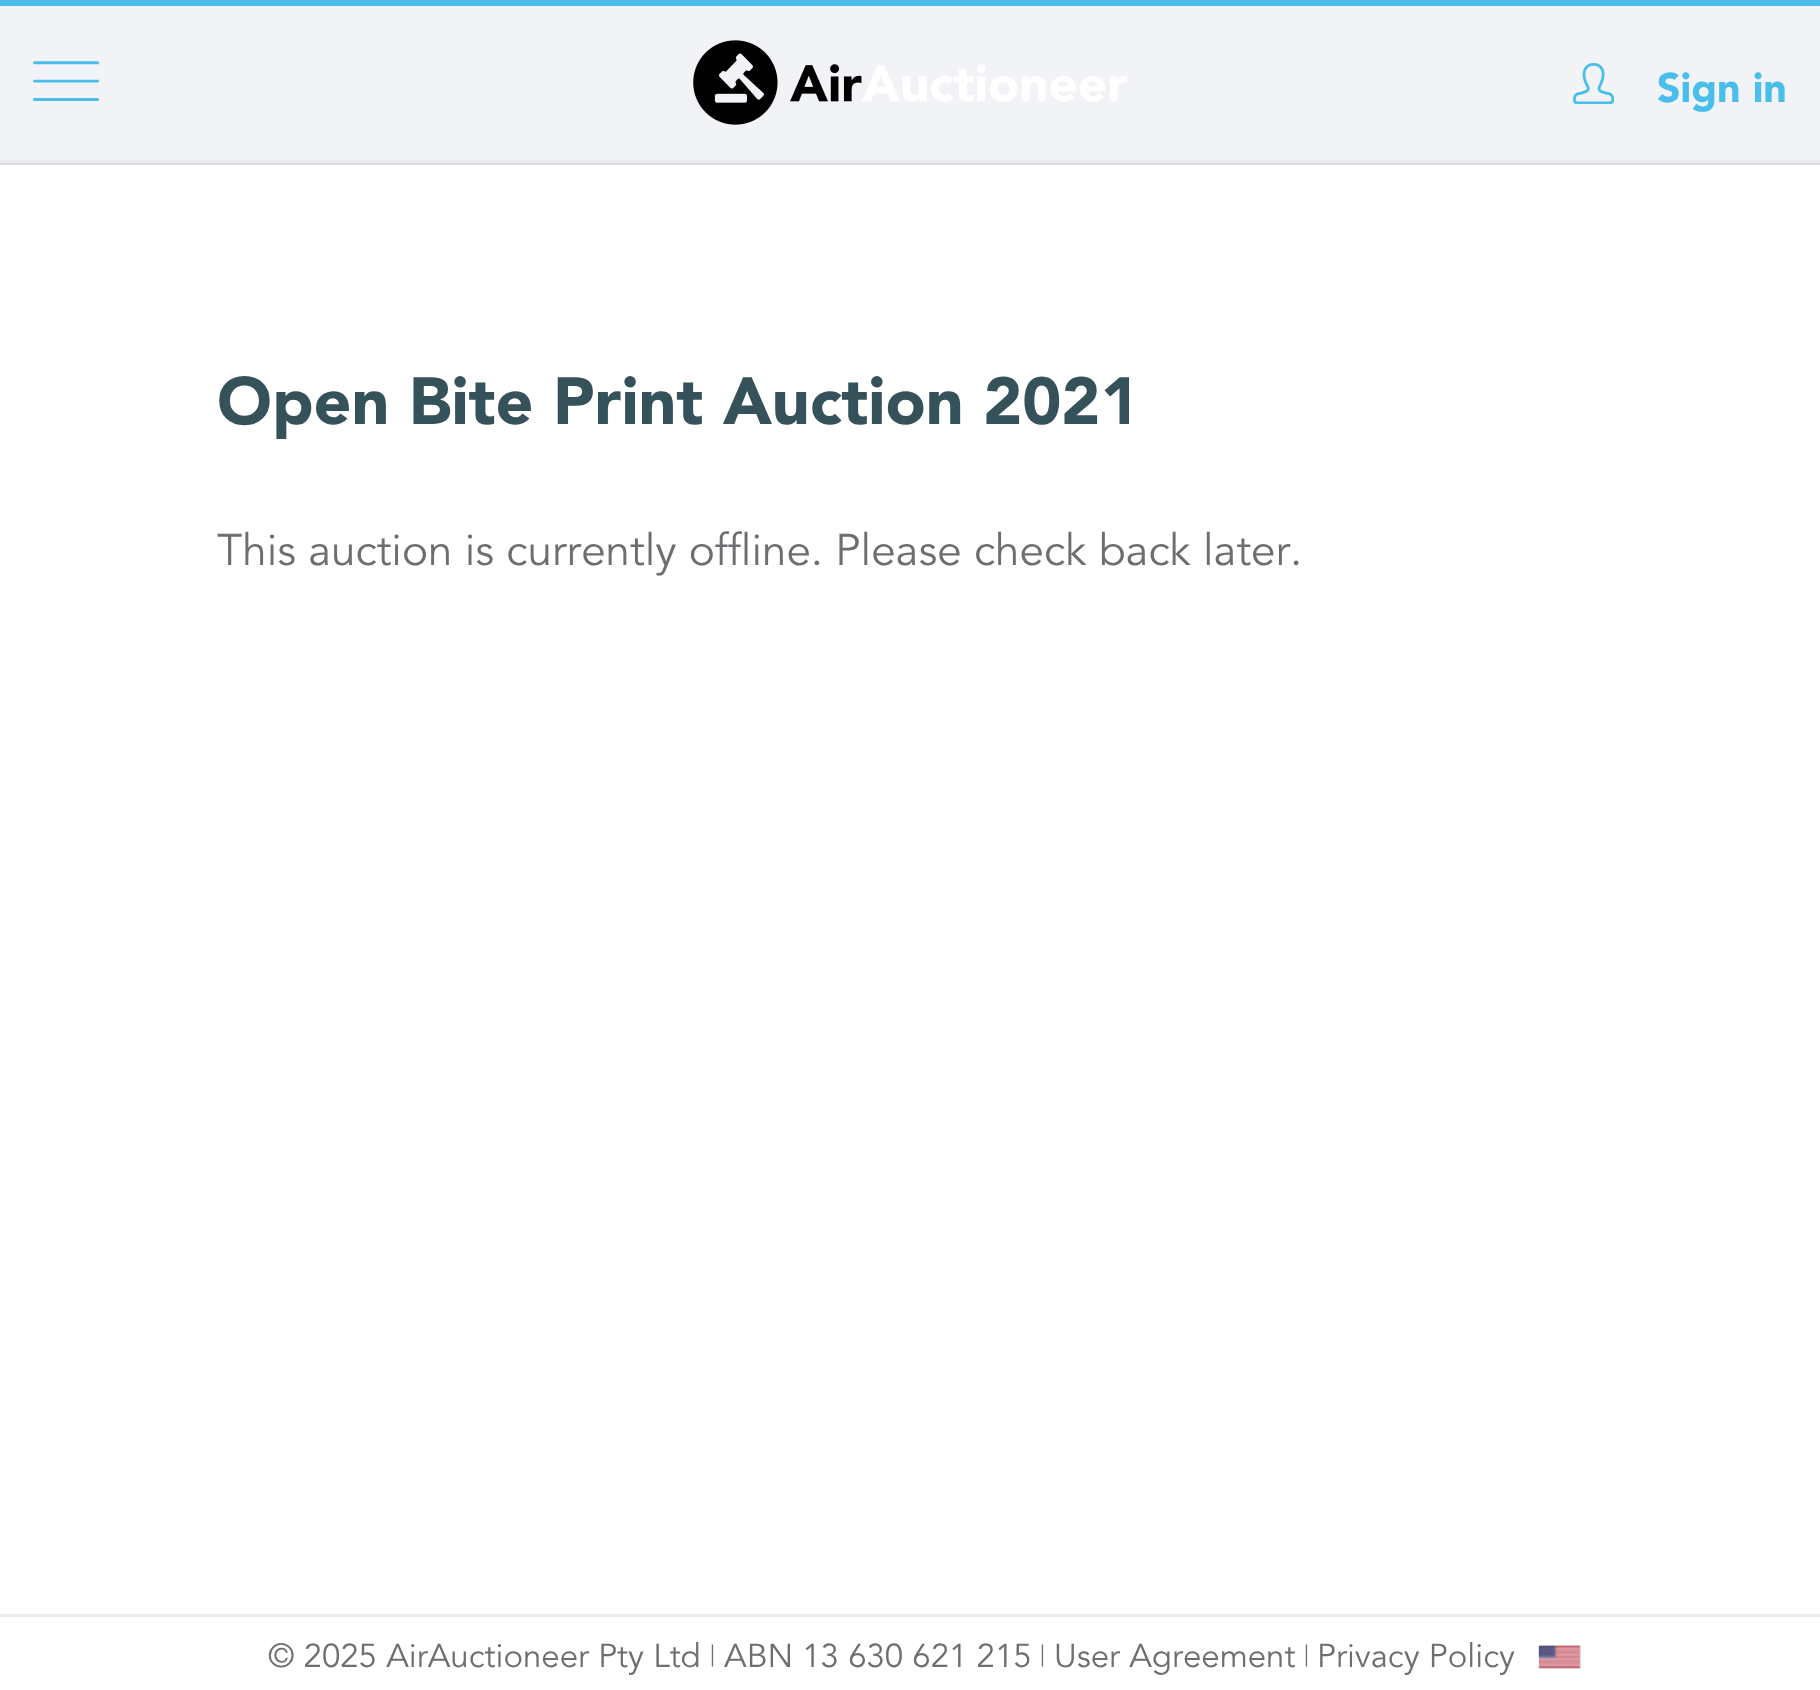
<svg xmlns="http://www.w3.org/2000/svg" width="1820" height="1690">
	<rect width="100%" height="100%" fill="#FFFFFF" />
	<rect x="0" y="0" width="1820" height="6" fill="#49BEEA" />
	<rect x="0" y="6" width="1820" height="154" fill="#F2F3F6" />
	<rect x="0" y="163" width="1820" height="2" fill="#DBDCDD" />
	<rect x="0" y="160" width="1820" height="3" fill="#E8EAED" />
	<image x="33" y="61" width="66" height="40" href="assets/img1.png" />
	<image x="693" y="40" width="434" height="85" href="assets/img2.png" />
	<image x="1573" y="63" width="41" height="41" href="assets/img3.png" />
	<text x="1657" y="102" font-family="Avenir" font-size="41" fill="#49BEEA">Sign in</text>
	<text x="217" y="424" font-family="Avenir" font-size="66" fill="#355159">Open Bite Print Auction 2021</text>
	<text x="217" y="565" font-family="'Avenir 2'" font-size="44" fill="#6D6E71">This auction is currently offline. Please check back later.</text>
	<rect x="0" y="1614" width="1820" height="3" fill="#E8EAED" />
	<text x="268" y="1667" font-family="'Avenir 2'" font-size="33" fill="#6D6E71">© 2025 AirAuctioneer Pty Ltd</text>
	<text x="710" y="1661" font-family="'Avenir 2'" font-size="22" fill="#6D6E71">|</text>
	<text x="724" y="1667" font-family="'Avenir 2'" font-size="33" fill="#6D6E71">ABN 13 630 621 215</text>
	<text x="1040" y="1661" font-family="'Avenir 2'" font-size="22" fill="#6D6E71">|</text>
	<text x="1054" y="1667" font-family="'Avenir 2'" font-size="33" fill="#6D6E71">User Agreement</text>
	<text x="1304" y="1661" font-family="'Avenir 2'" font-size="22" fill="#6D6E71">|</text>
	<text x="1317" y="1667" font-family="'Avenir 2'" font-size="33" fill="#6D6E71">Privacy Policy</text>
	<rect x="1540" y="1645" width="41" height="24" fill="#DBDBDB" />
	<image x="1538" y="1645" width="42" height="24" href="assets/img4.png" />
</svg>
